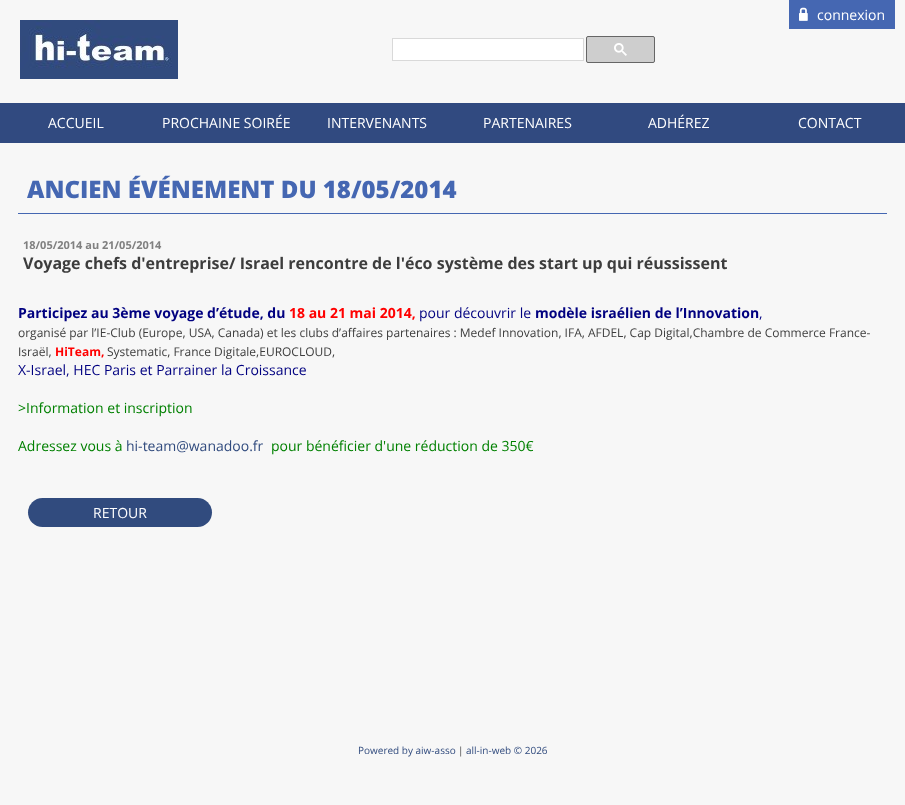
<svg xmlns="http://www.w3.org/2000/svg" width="905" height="805">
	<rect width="100%" height="100%" fill="#F7F7F7" />
	<rect x="789" y="0" width="106" height="29" fill="#4567B2" />
	<image x="799" y="7" width="9" height="14" href="assets/img1.png" />
	<text x="817" y="20" font-family="Open Sans" font-size="14" fill="#FFFFFF">connexion</text>
	<image x="20" y="20" width="158" height="59" href="assets/img2.png" />
	<rect x="392.5" y="38.5" width="191" height="22" fill="#FFFFFF" stroke="#D9D9D9" />
	<rect x="586.5" y="36.5" width="68" height="26" rx="1.5" fill="#CECECE" stroke="#666666" />
	<image x="614" y="43" width="13" height="13" href="assets/img3.png" />
	<rect x="0" y="103" width="905" height="40" fill="#314A80" />
	<g font-family="Open Sans" font-size="14" fill="#FFFFFF">
		<text x="48" y="128">ACCUEIL</text>
		<text x="162" y="128">PROCHAINE SOIRÉE</text>
		<text x="327" y="128">INTERVENANTS</text>
		<text x="483" y="128">PARTENAIRES</text>
		<text x="648" y="128">ADHÉREZ</text>
		<text x="798" y="128">CONTACT</text>
	</g>
	<rect x="18" y="213" width="869" height="1" fill="#4567B2" />
	<text x="27" y="198" font-family="Open Sans" font-size="24" font-weight="800" fill="#4567B2">ANCIEN ÉVÉNEMENT DU 18/05/2014</text>
	<text x="23" y="249" font-family="Open Sans" font-size="11" font-weight="700" fill="#808080">18/05/2014 au 21/05/2014</text>
	<text x="23" y="269" font-family="Open Sans" font-size="16" font-weight="700" fill="#3D3D3D">Voyage chefs d'entreprise/ Israel rencontre de l'éco système des start up qui réussissent</text>
	<text x="18" y="318" font-family="Open Sans" font-size="14" font-weight="700" fill="#000080">Participez au 3ème voyage d’étude, du</text>
	<text x="289" y="318" font-family="Open Sans" font-size="14" font-weight="700" fill="#FF0000">18 au 21 mai 2014,</text>
	<text x="419" y="318" font-family="Open Sans" font-size="14" fill="#000080">pour découvrir le</text>
	<text x="535" y="318" font-family="Open Sans" font-size="14" font-weight="700" fill="#000080">modèle israélien de l’Innovation</text>
	<text x="759" y="318" font-family="Open Sans" font-size="14" fill="#000080">,</text>
	<g font-family="Open Sans" font-size="12" fill="#3D3D3D">
		<text x="18" y="337">organisé par l’IE-Club (Europe, USA, Canada) et les clubs d’affaires partenaires : Medef Innovation, IFA, AFDEL, Cap Digital,Chambre de Commerce France-</text>
		<text x="18" y="356">Israël,</text>
	</g>
	<text x="55" y="356" font-family="Open Sans" font-size="12" font-weight="700" fill="#FF0000">HiTeam,</text>
	<text x="107" y="356" font-family="Open Sans" font-size="12" fill="#3D3D3D">Systematic, France Digitale,EUROCLOUD,</text>
	<text x="18" y="375" font-family="Open Sans" font-size="14" fill="#000080">X-Israel, HEC Paris et Parrainer la Croissance</text>
	<g font-family="Open Sans" font-size="14" fill="#008000">
		<text x="18" y="413">&gt;Information et inscription</text>
		<text x="18" y="451">Adressez vous à</text>
	</g>
	<text x="126" y="451" font-family="Open Sans" font-size="14" fill="#314B7E">hi-team@wanadoo.fr</text>
	<text x="271" y="451" font-family="Open Sans" font-size="14" fill="#008000">pour bénéficier d'une réduction de 350€</text>
	<rect x="28" y="498" width="184" height="29" rx="14.5" fill="#314B7E" />
	<text x="93" y="518" font-family="Open Sans" font-size="14" fill="#FFFFFF">RETOUR</text>
	<text x="358" y="754" font-family="Open Sans" font-size="10" fill="#314B7E">Powered by aiw-asso</text>
	<text x="458" y="754" font-family="Open Sans" font-size="10" fill="#3D3D3D">|</text>
	<text x="466" y="754" font-family="Open Sans" font-size="10" fill="#314B7E">all-in-web © 2026</text>
</svg>
